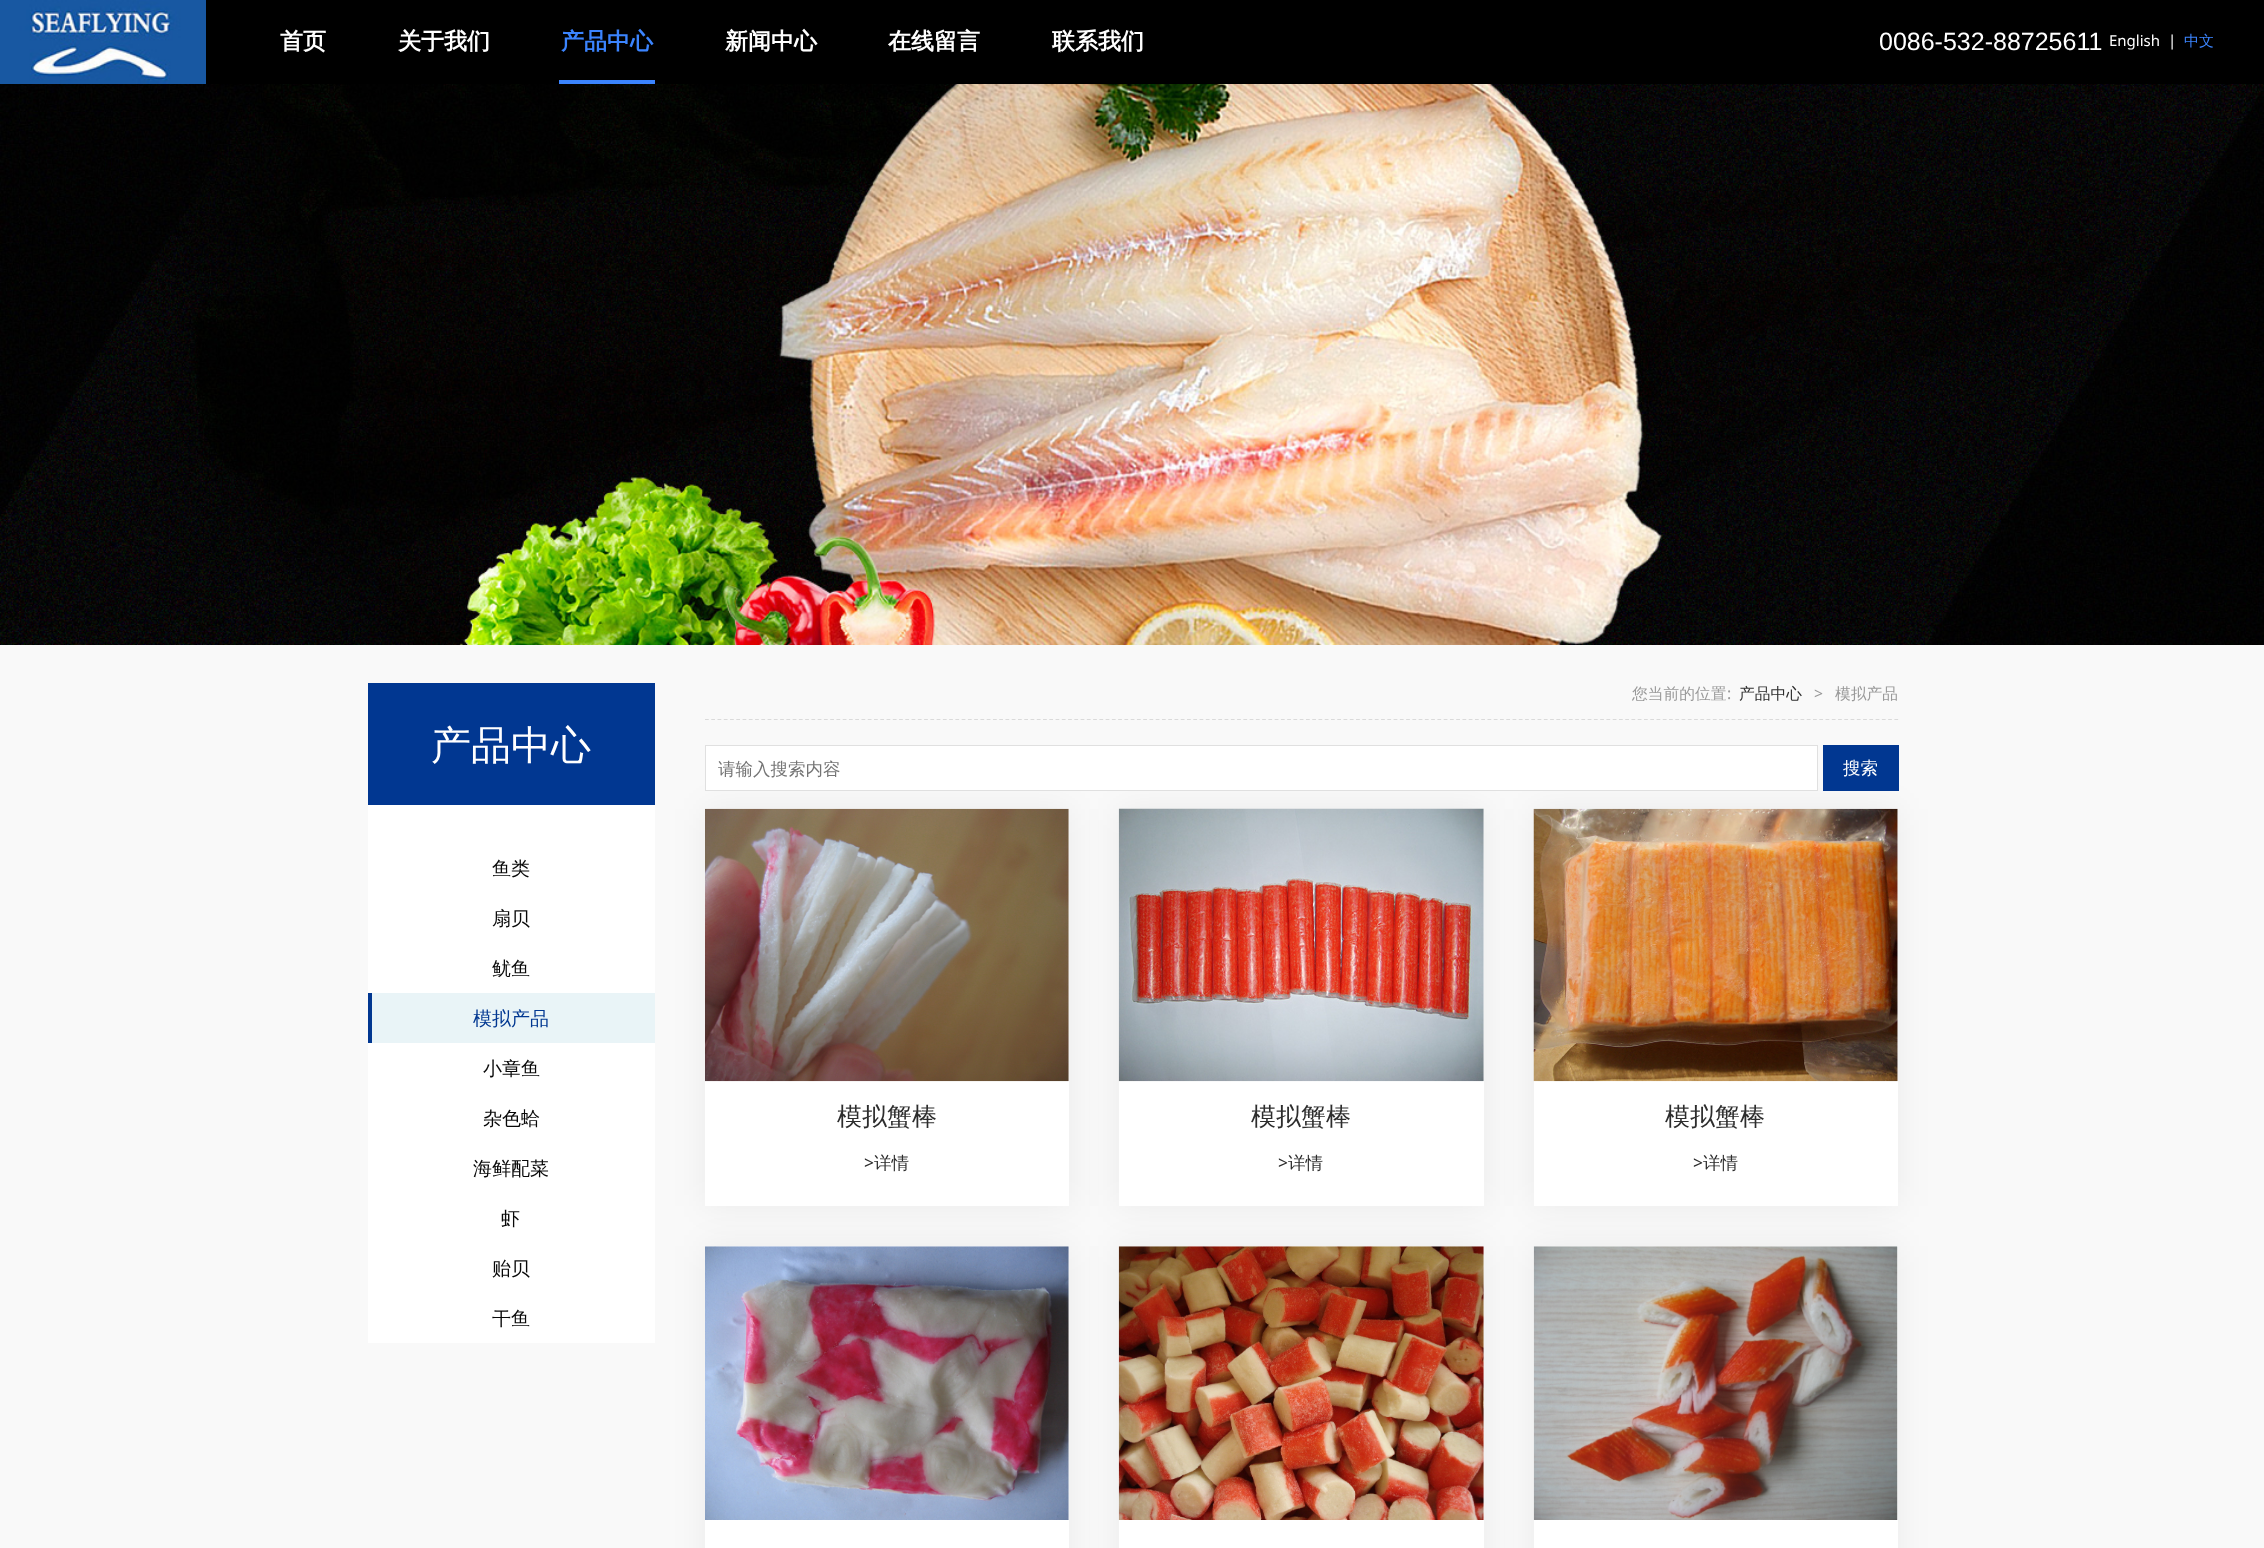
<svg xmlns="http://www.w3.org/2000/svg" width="2264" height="1548">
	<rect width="100%" height="100%" fill="#F9F9F9" />
	<rect x="206" y="0" width="2058" height="84" fill="#000000" />
	<image x="0" y="0" width="206" height="84" href="assets/img1.png" />
	<g font-family="WenQuanYi Zen Hei" font-size="23" font-weight="700" fill="#FFFFFF">
		<text x="280" y="49">首页</text>
		<text x="398" y="49">关于我们</text>
	</g>
	<text x="561" y="49" font-family="WenQuanYi Zen Hei" font-size="23" font-weight="700" fill="#3B84FE">产品中心</text>
	<rect x="559" y="80" width="96" height="4" fill="#3B84FE" />
	<g font-family="WenQuanYi Zen Hei" font-size="23" font-weight="700" fill="#FFFFFF">
		<text x="725" y="49">新闻中心</text>
		<text x="888" y="49">在线留言</text>
		<text x="1052" y="49">联系我们</text>
	</g>
	<text x="1879" y="50" font-family="Liberation Sans" font-size="25" fill="#FFFFFF">0086-532-88725611</text>
	<g font-family="Noto Sans" font-size="15" fill="#FFFFFF">
		<text x="2109" y="46">English</text>
		<text x="2168" y="46">|</text>
	</g>
	<text x="2184" y="46" font-family="WenQuanYi Zen Hei" font-size="15" font-weight="500" fill="#3B84FE">中文</text>
	<image x="0" y="84" width="2264" height="561" href="assets/img2.png" />
	<rect x="368" y="805" width="287" height="538" fill="#FFFFFF" />
	<rect x="368" y="683" width="287" height="122" fill="#013791" />
	<text x="431" y="759" font-family="WenQuanYi Zen Hei" font-size="40" font-weight="500" fill="#FFFFFF">产品中心</text>
	<g font-family="WenQuanYi Zen Hei" font-size="19" font-weight="500" fill="#080808">
		<text x="492" y="875">鱼类</text>
		<text x="492" y="925">扇贝</text>
		<text x="492" y="975">鱿鱼</text>
	</g>
	<rect x="368" y="993" width="4" height="50" fill="#013791" />
	<rect x="705" y="809" width="364" height="397" fill="#000000" fill-opacity="0.06" filter="blur(17px)" />
	<rect x="372" y="993" width="283" height="50" fill="#E9F4F7" />
	<text x="473" y="1025" font-family="WenQuanYi Zen Hei" font-size="19" font-weight="500" fill="#013791">模拟产品</text>
	<g font-family="WenQuanYi Zen Hei" font-size="19" font-weight="500" fill="#080808">
		<text x="483" y="1075">小章鱼</text>
		<text x="483" y="1125">杂色蛤</text>
		<text x="473" y="1175">海鲜配菜</text>
		<text x="501" y="1225">虾</text>
		<text x="492" y="1275">贻贝</text>
		<text x="492" y="1325">干鱼</text>
	</g>
	<path d="M705 719.5H1899" fill="none" stroke="#DADADA" stroke-width="1.2" stroke-dasharray="3.75 2.51" />
	<text x="1632" y="699" font-family="WenQuanYi Zen Hei" font-size="15.75" font-weight="500" fill="#999999">您当前的位置</text>
	<text x="1727" y="699" font-family="Noto Sans" font-size="15.75" fill="#999999">:</text>
	<text x="1739" y="699" font-family="WenQuanYi Zen Hei" font-size="15.75" font-weight="500" fill="#2D2D2D">产品中心</text>
	<text x="1814" y="699" font-family="Noto Sans" font-size="15.75" fill="#999999">&gt;</text>
	<text x="1835" y="699" font-family="WenQuanYi Zen Hei" font-size="15.75" font-weight="500" fill="#999999">模拟产品</text>
	<rect x="705" y="809" width="364" height="397" fill="#FFFFFF" />
	<rect x="1119" y="809" width="365" height="397" fill="#000000" fill-opacity="0.06" filter="blur(17px)" />
	<rect x="1119" y="809" width="365" height="397" fill="#FFFFFF" />
	<rect x="1534" y="809" width="364" height="397" fill="#000000" fill-opacity="0.06" filter="blur(17px)" />
	<rect x="705.5" y="745.5" width="1112" height="45" fill="#FFFFFF" stroke="#E0E0E0" />
	<text x="718" y="775" font-family="WenQuanYi Zen Hei" font-size="17.5" font-weight="500" fill="#757575">请输入搜索内容</text>
	<rect x="1823" y="745" width="76" height="46" fill="#013791" />
	<text x="1843" y="774" font-family="WenQuanYi Zen Hei" font-size="17.5" font-weight="500" fill="#FFFFFF">搜索</text>
	<image x="705" y="808" width="364" height="274" href="assets/img3.png" />
	<text x="837" y="1125" font-family="WenQuanYi Zen Hei" font-size="25" font-weight="500" fill="#2D2D2D">模拟蟹棒</text>
	<text x="864" y="1169" font-family="Noto Sans" font-size="17.5" fill="#2D2D2D">&gt;</text>
	<text x="874" y="1169" font-family="WenQuanYi Zen Hei" font-size="17.5" font-weight="500" fill="#2D2D2D">详情</text>
	<image x="1118" y="808" width="366" height="274" href="assets/img4.png" />
	<text x="1251" y="1125" font-family="WenQuanYi Zen Hei" font-size="25" font-weight="500" fill="#2D2D2D">模拟蟹棒</text>
	<text x="1278" y="1169" font-family="Noto Sans" font-size="17.5" fill="#2D2D2D">&gt;</text>
	<text x="1288" y="1169" font-family="WenQuanYi Zen Hei" font-size="17.5" font-weight="500" fill="#2D2D2D">详情</text>
	<rect x="1534" y="809" width="364" height="397" fill="#FFFFFF" />
	<image x="1533" y="808" width="365" height="274" href="assets/img5.png" />
	<text x="1665" y="1125" font-family="WenQuanYi Zen Hei" font-size="25" font-weight="500" fill="#2D2D2D">模拟蟹棒</text>
	<text x="1693" y="1169" font-family="Noto Sans" font-size="17.5" fill="#2D2D2D">&gt;</text>
	<text x="1703" y="1169" font-family="WenQuanYi Zen Hei" font-size="17.5" font-weight="500" fill="#2D2D2D">详情</text>
	<rect x="705" y="1246" width="364" height="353" fill="#000000" fill-opacity="0.06" filter="blur(17px)" />
	<rect x="705" y="1246" width="364" height="302" fill="#FFFFFF" />
	<rect x="1119" y="1246" width="365" height="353" fill="#000000" fill-opacity="0.06" filter="blur(17px)" />
	<image x="705" y="1246" width="364" height="274" href="assets/img6.png" />
	<rect x="1119" y="1246" width="365" height="302" fill="#FFFFFF" />
	<rect x="1534" y="1246" width="364" height="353" fill="#000000" fill-opacity="0.06" filter="blur(17px)" />
	<image x="1118" y="1246" width="366" height="274" href="assets/img7.png" />
	<rect x="1534" y="1246" width="364" height="302" fill="#FFFFFF" />
	<image x="1533" y="1246" width="365" height="274" href="assets/img8.png" />
</svg>
